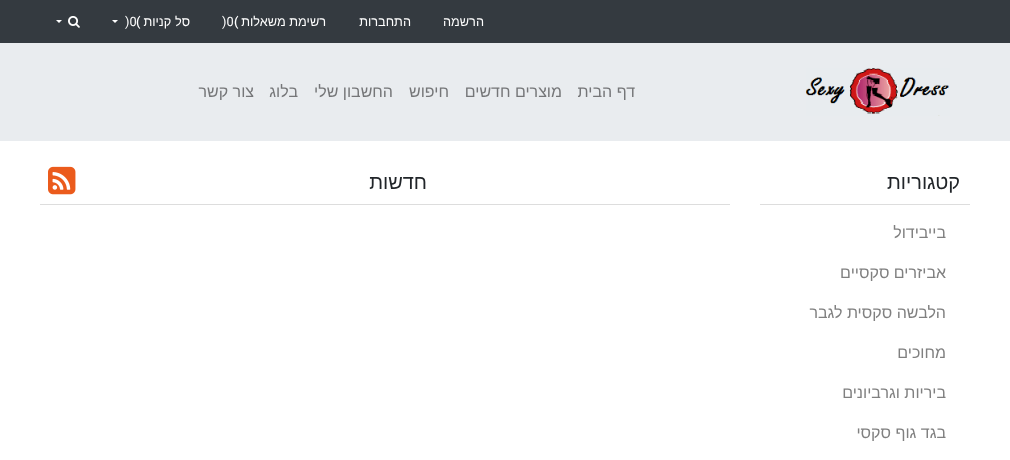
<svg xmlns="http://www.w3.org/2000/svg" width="1010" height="460">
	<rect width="100%" height="100%" fill="#FFFFFF" />
	<rect x="0" y="0" width="1010" height="43" fill="#343A40" />
	<g font-family="Liberation Sans" font-size="12.75" direction="rtl" fill="#FFFFFF">
		<text x="484" y="26">הרשמה</text>
		<text x="411" y="26">התחברות</text>
		<text x="326" y="26">רשימת משאלות</text>
	</g>
	<text x="234" y="26" font-family="Roboto" font-size="12.75" font-weight="500" fill="#FFFFFF">(</text>
	<text x="222" y="26" font-family="Roboto" font-size="12.75" fill="#FFFFFF">)0</text>
	<text x="190" y="26" font-family="Liberation Sans" font-size="12.75" direction="rtl" fill="#FFFFFF">סל קניות</text>
	<text x="136" y="26" font-family="Roboto" font-size="12.75" font-weight="500" fill="#FFFFFF">(</text>
	<text x="125" y="26" font-family="Roboto" font-size="12.75" fill="#FFFFFF">)0</text>
	<path d="M112 20H118L115 23Z" fill="#FFFFFF" />
	<image x="68" y="16" width="12" height="12" href="assets/img1.png" />
	<path d="M56 20H62L59 23Z" fill="#FFFFFF" />
	<rect x="0" y="43" width="1010" height="98" fill="#E9ECEF" />
	<image x="806" y="68" width="144" height="48" href="assets/img2.png" />
	<g font-family="Liberation Sans" font-size="16" direction="rtl" fill="#757678">
		<text x="635" y="97">דף הבית</text>
		<text x="562" y="97">מוצרים חדשים</text>
		<text x="449" y="97">חיפוש</text>
		<text x="393" y="97">החשבון שלי</text>
		<text x="298" y="97">בלוג</text>
		<text x="254" y="97">צור קשר</text>
	</g>
	<rect x="760" y="204" width="210" height="1" fill="#DDDDDD" />
	<text x="960" y="189" font-family="Liberation Sans" font-size="20" direction="rtl" fill="#212529">קטגוריות</text>
	<g font-family="Liberation Sans" font-size="16" direction="rtl" fill="#808080">
		<text x="946" y="238">בייבידול</text>
		<text x="946" y="278">אביזרים סקסיים</text>
		<text x="946" y="318">הלבשה סקסית לגבר</text>
		<text x="946" y="358">מחוכים</text>
		<text x="946" y="398">ביריות וגרביונים</text>
		<text x="946" y="438">בגד גוף סקסי</text>
	</g>
	<rect x="40" y="204" width="690" height="1" fill="#DDDDDD" />
	<text x="427" y="189" font-family="Liberation Sans" font-size="20" direction="rtl" fill="#212529">חדשות</text>
	<image x="48" y="166" width="28" height="29" href="assets/img3.png" />
</svg>
